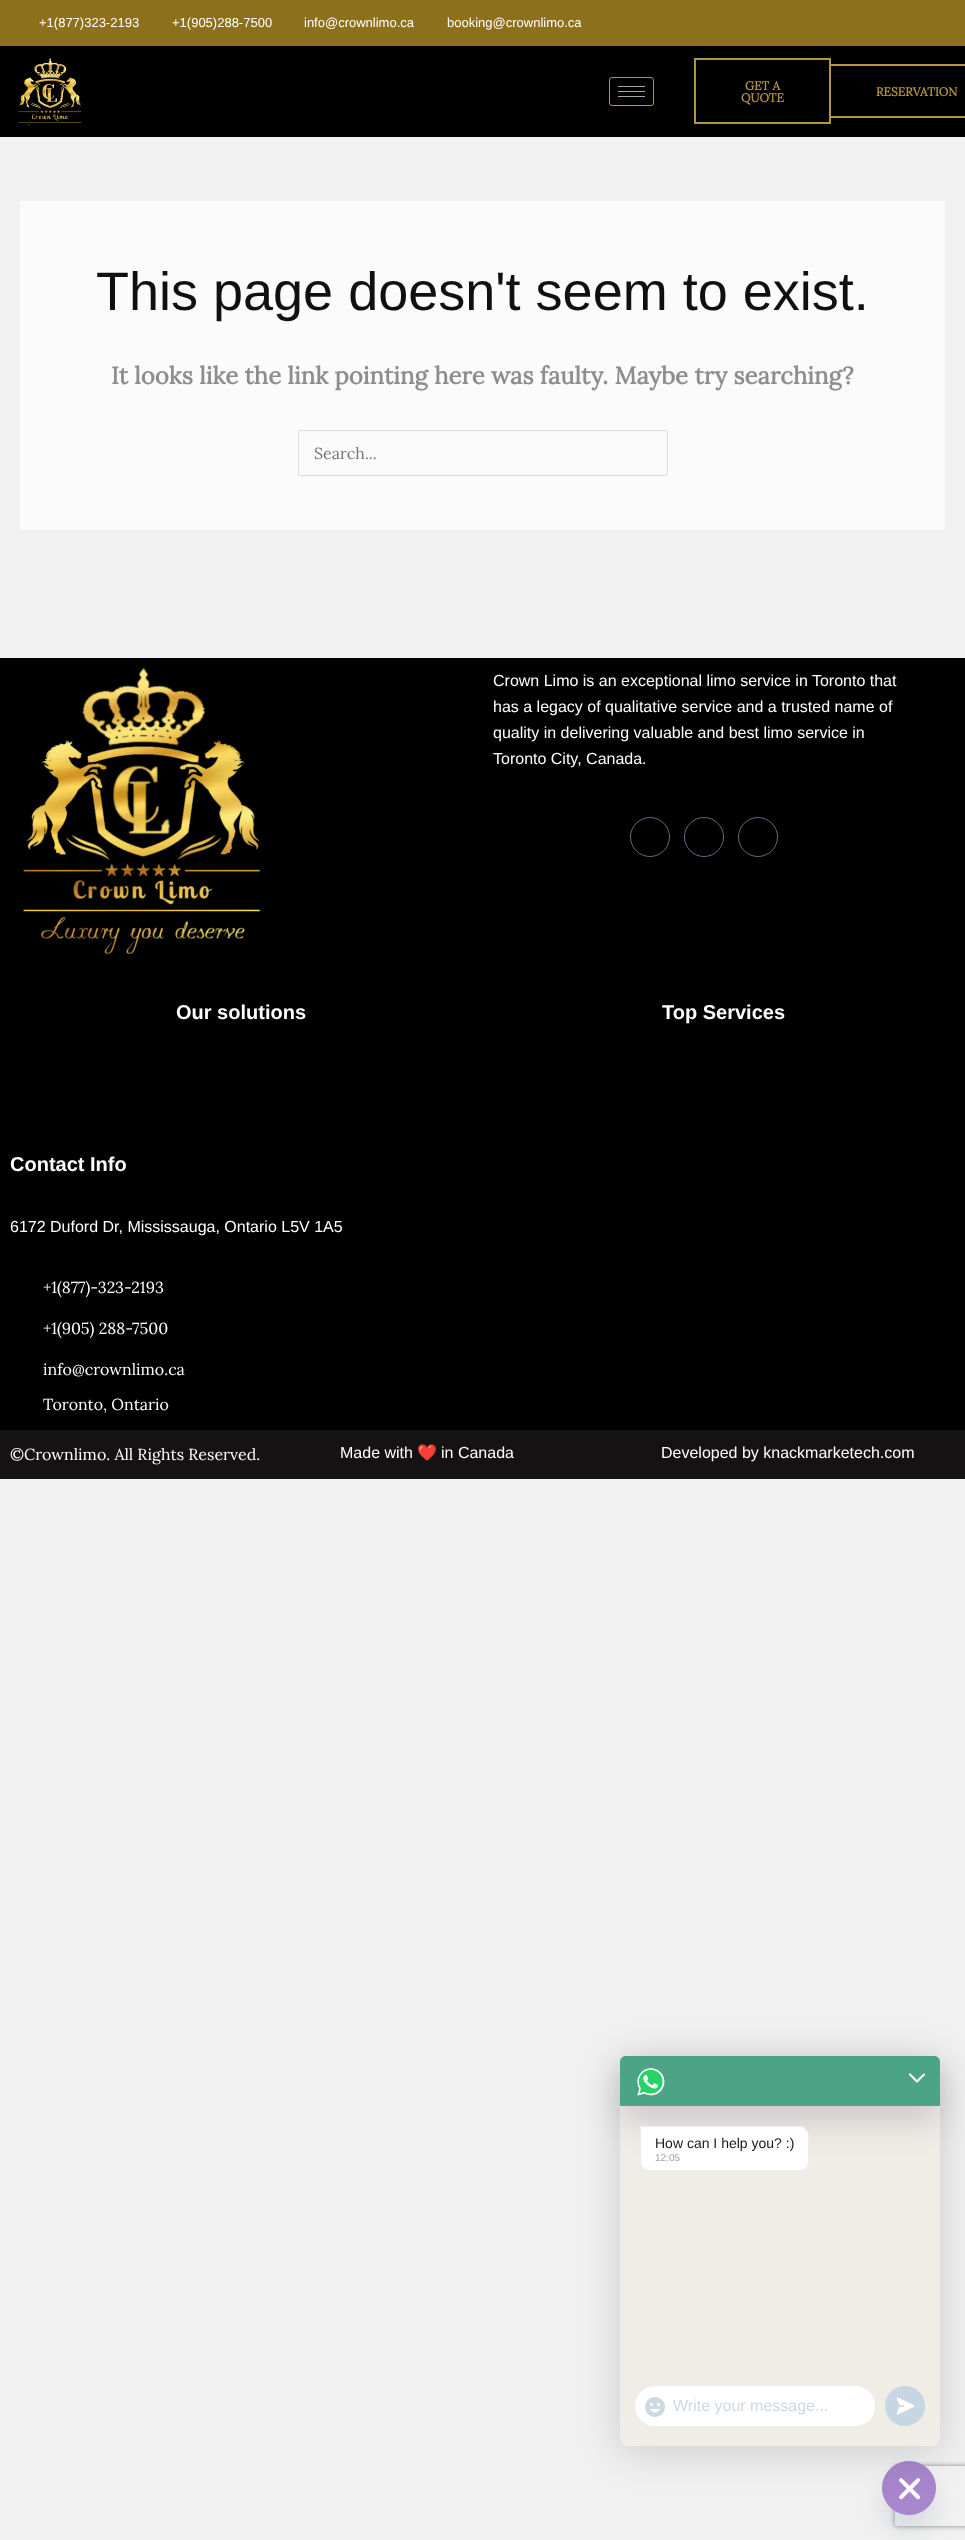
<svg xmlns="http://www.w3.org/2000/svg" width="965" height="2540">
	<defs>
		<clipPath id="clip1"><path d="M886 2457H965V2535H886ZM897 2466H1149C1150 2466 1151 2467 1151 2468V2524C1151 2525 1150 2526 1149 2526H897C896 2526 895 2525 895 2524V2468C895 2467 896 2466 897 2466Z" clip-rule="evenodd" /></clipPath>
	</defs>
	<rect width="100%" height="100%" fill="#F1F1F1" />
	<rect x="0" y="0" width="965" height="46" fill="#8C701B" />
	<g font-family="Liberation Sans" font-size="13" fill="#FFFFFF">
		<text x="39" y="27">+1(877)323-2193</text>
		<text x="172" y="27">+1(905)288-7500</text>
		<text x="304" y="27">info@crownlimo.ca</text>
		<text x="447" y="27">booking@crownlimo.ca</text>
	</g>
	<rect x="0" y="46" width="965" height="91" fill="#000000" />
	<image x="18" y="58" width="63" height="67" href="assets/img1.png" />
	<rect x="609.5" y="77.5" width="44" height="28" rx="2.5" fill="none" stroke="#B19540" />
	<rect x="618" y="86" width="27" height="1" fill="#A7A7A7" />
	<rect x="618" y="91" width="27" height="1" fill="#A7A7A7" />
	<rect x="618" y="96" width="27" height="1" fill="#A7A7A7" />
	<rect x="695" y="59" width="135" height="64" fill="none" stroke="#B19540" stroke-width="2" />
	<g font-family="Lora" font-size="12" font-weight="700" fill="#B19540">
		<text x="745" y="90">GET A</text>
		<text x="741" y="102">QUOTE</text>
	</g>
	<rect x="830" y="65" width="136" height="52" fill="none" stroke="#B19540" stroke-width="2" />
	<text x="876" y="96" font-family="Lora" font-size="12" font-weight="700" fill="#B19540">RESERVATION</text>
	<rect x="20" y="201" width="925" height="329" fill="#FBFBFB" />
	<text x="96" y="310" font-family="Liberation Sans" font-size="54" fill="#101010">This page doesn't seem to exist.</text>
	<text x="111" y="384" font-family="Lora" font-size="24" font-weight="700" fill="#8D8D8D">It looks like the link pointing here was faulty. Maybe try searching?</text>
	<rect x="298.5" y="430.5" width="369" height="45" rx="1.5" fill="none" stroke="#DDDDDD" />
	<text x="314" y="459" font-family="Lora" font-size="16" fill="#757575">Search...</text>
	<rect x="0" y="658" width="965" height="772" fill="#000000" />
	<image x="23" y="668" width="237" height="287" href="assets/img2.png" />
	<g font-family="Liberation Sans" font-size="16" fill="#FFFFFF">
		<text x="493" y="686">Crown Limo is an exceptional limo service in Toronto that</text>
		<text x="493" y="712">has a legacy of qualitative service and a trusted name of</text>
		<text x="493" y="738">quality in delivering valuable and best limo service in</text>
		<text x="493" y="764">Toronto City, Canada.</text>
	</g>
	<circle cx="650" cy="837" r="19.5" fill="none" stroke="#5E6D7E" />
	<circle cx="704" cy="837" r="19.5" fill="none" stroke="#5E6D7E" />
	<circle cx="758" cy="837" r="19.5" fill="none" stroke="#5E6D7E" />
	<g font-family="Liberation Sans" font-size="20" font-weight="700" fill="#FFFFFF">
		<text x="176" y="1019">Our solutions</text>
		<text x="662" y="1019">Top Services</text>
		<text x="10" y="1171">Contact Info</text>
	</g>
	<text x="10" y="1232" font-family="Liberation Sans" font-size="16" fill="#FFFFFF">6172 Duford Dr, Mississauga, Ontario L5V 1A5</text>
	<g font-family="Lora" font-size="16" fill="#FFFFFF">
		<text x="43" y="1293">+1(877)-323-2193</text>
		<text x="43" y="1334">+1(905) 288-7500</text>
		<text x="43" y="1375">info@crownlimo.ca</text>
		<text x="43" y="1410">Toronto, Ontario</text>
	</g>
	<rect x="0" y="1430" width="965" height="49" fill="#141212" />
	<text x="10" y="1460" font-family="Lora" font-size="16" fill="#FFFFFF">©Crownlimo. All Rights Reserved.</text>
	<text x="340" y="1458" font-family="Liberation Sans" font-size="16" fill="#FFFFFF">Made with</text>
	<text x="417" y="1458" font-family="Noto Color Emoji" font-size="16" fill="#FFFFFF">❤️</text>
	<g font-family="Liberation Sans" font-size="16" fill="#FFFFFF">
		<text x="441" y="1458">in Canada</text>
		<text x="661" y="1458">Developed by knackmarketech.com</text>
	</g>
	<rect x="882" y="2477" width="54" height="54" rx="27" fill="#49687E" fill-opacity="0.16" filter="blur(12px)" />
	<g clip-path="url(#clip1)">
		<rect x="895" y="2466" width="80" height="60" rx="2" fill="#808080" filter="blur(2.5px)" />
	</g>
	<image x="882" y="2461" width="54" height="54" href="assets/img6.png" />
	<rect x="620" y="2061" width="320" height="390" rx="6" fill="#000000" fill-opacity="0.16" filter="blur(20px)" />
	<rect x="620" y="2056" width="320" height="390" rx="8" fill="#F0EDE7" />
	<rect x="620" y="2072" width="320" height="50" rx="6" fill="#1A0E35" fill-opacity="0.16" filter="blur(16px)" />
	<path d="M626 2056H934C937.5 2056 940 2058.5 940 2062V2106H620V2062C620 2058.5 622.5 2056 626 2056Z" fill="#4AA485" />
	<image x="637" y="2068" width="28" height="28" href="assets/img3.png" />
	<path d="M910 2074.5L917 2081.5L924 2074.5" fill="none" stroke="#FFFFFF" stroke-width="2.1" stroke-linecap="round" stroke-linejoin="round" />
	<path d="M640 2126H799C804.5 2126 809 2130.5 809 2136V2161C809 2166.5 804.5 2171 799 2171H650C644.5 2171 640 2166.5 640 2161Z" fill="#FFFFFF" />
	<path d="M640.5 2126.5H799C804 2126.5 808.5 2131 808.5 2136V2161C808.5 2166 804 2170.5 799 2170.5H650C645 2170.5 640.5 2166 640.5 2161Z" fill="none" stroke="#221147" stroke-opacity="0.08" />
	<text x="655" y="2148" font-family="Liberation Sans" font-size="14" fill="#111B21">How can I help you? :)</text>
	<text x="655" y="2161" font-family="Liberation Sans" font-size="10" fill="#A1A1A9">12:05</text>
	<rect x="635" y="2386" width="240" height="40" rx="20" fill="#FFFFFF" />
	<image x="645" y="2397" width="20" height="20" href="assets/img4.png" />
	<text x="673" y="2411" font-family="Liberation Sans" font-size="16" fill="#CDD9E2">Write your message...</text>
	<circle cx="905" cy="2406" r="20" fill="#C6D7E3" />
	<image x="896" y="2397" width="19" height="18" href="assets/img5.png" />
</svg>
